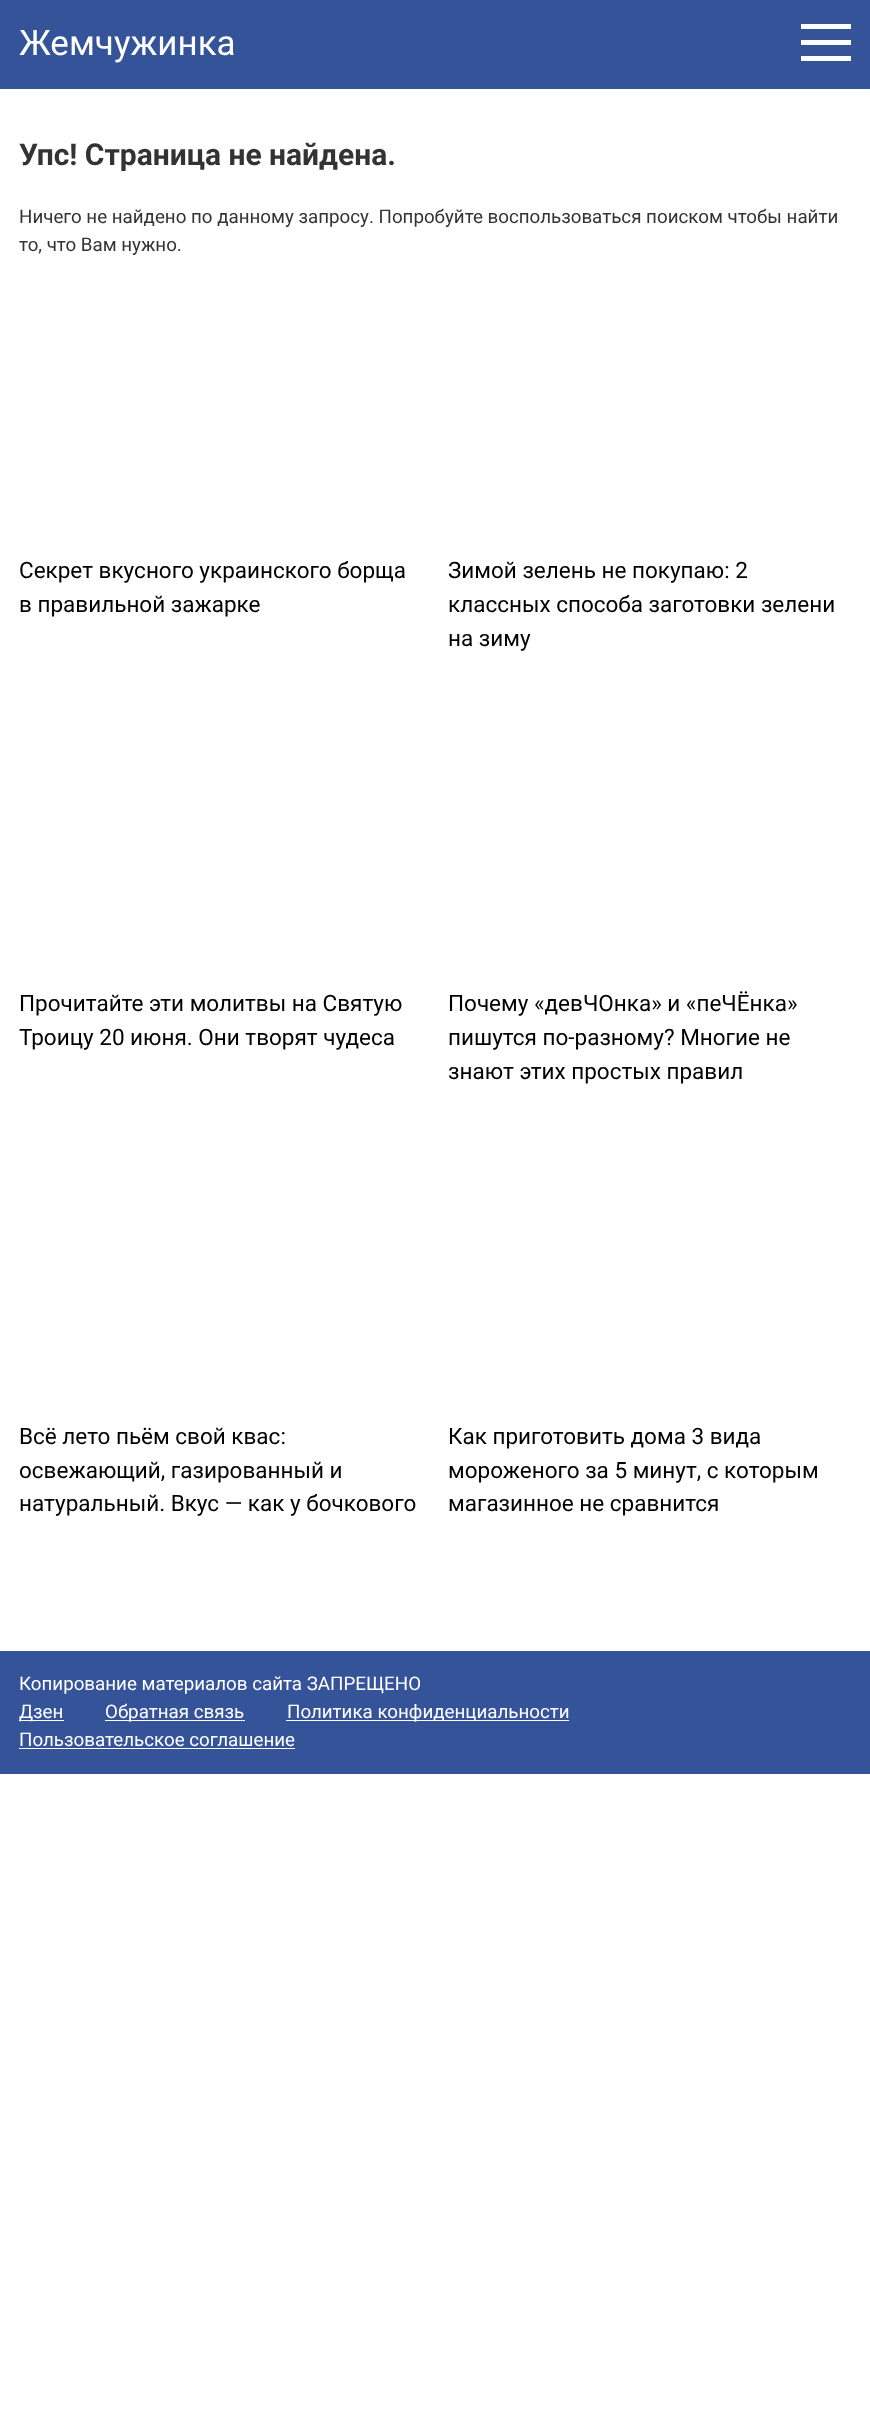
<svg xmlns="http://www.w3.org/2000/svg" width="870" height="2410">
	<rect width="100%" height="100%" fill="#FFFFFF" />
	<rect x="0" y="0" width="870" height="89" fill="#355399" />
	<text x="19" y="55" font-family="Roboto" font-size="35" fill="#FFFFFF">Жемчужинка</text>
	<rect x="801" y="24" width="50" height="5" fill="#FFFFFF" />
	<rect x="801" y="56" width="50" height="5" fill="#FFFFFF" />
	<rect x="801" y="40" width="50" height="5" fill="#FFFFFF" />
	<text x="19" y="165" font-family="Roboto" font-size="30" font-weight="700" fill="#333333">Упс! Страница не найдена.</text>
	<g font-family="Roboto" font-size="18.75" fill="#333333">
		<text x="19" y="223">Ничего не найдено по данному запросу. Попробуйте воспользоваться поиском чтобы найти</text>
		<text x="19" y="251">то, что Вам нужно.</text>
	</g>
	<g font-family="Roboto" font-size="22.5" fill="#000000">
		<text x="19" y="578">Секрет вкусного украинского борща</text>
		<text x="19" y="612">в правильной зажарке</text>
		<text x="448" y="578">Зимой зелень не покупаю: 2</text>
		<text x="448" y="612">классных способа заготовки зелени</text>
		<text x="448" y="646">на зиму</text>
		<text x="19" y="1011">Прочитайте эти молитвы на Святую</text>
		<text x="19" y="1045">Троицу 20 июня. Они творят чудеса</text>
		<text x="448" y="1011">Почему «девЧОнка» и «пеЧЁнка»</text>
		<text x="448" y="1045">пишутся по-разному? Многие не</text>
		<text x="448" y="1079">знают этих простых правил</text>
		<text x="19" y="1444">Всё лето пьём свой квас:</text>
		<text x="19" y="1478">освежающий, газированный и</text>
		<text x="19" y="1511">натуральный. Вкус — как у бочкового</text>
		<text x="448" y="1444">Как приготовить дома 3 вида</text>
		<text x="448" y="1478">мороженого за 5 минут, с которым</text>
		<text x="448" y="1511">магазинное не сравнится</text>
	</g>
	<rect x="0" y="1651" width="870" height="123" fill="#355399" />
	<text x="19" y="1690" font-family="Roboto" font-size="18.75" fill="#FFFFFF">Копирование материалов сайта ЗАПРЕЩЕНО</text>
	<rect x="19" y="1720" width="45" height="1" fill="#FFFFFF" />
	<text x="19" y="1718" font-family="Roboto" font-size="18.75" fill="#FFFFFF">Дзен</text>
	<rect x="105" y="1720" width="140" height="1" fill="#FFFFFF" />
	<text x="105" y="1718" font-family="Roboto" font-size="18.75" fill="#FFFFFF">Обратная связь</text>
	<rect x="286" y="1720" width="283" height="1" fill="#FFFFFF" />
	<g font-family="Roboto" font-size="18.75" fill="#FFFFFF">
		<text x="287" y="1718">Политика конфиденциальности</text>
		<text x="19" y="1746">Пользовательское соглашение</text>
	</g>
	<rect x="19" y="1748" width="276" height="1" fill="#FFFFFF" />
</svg>
